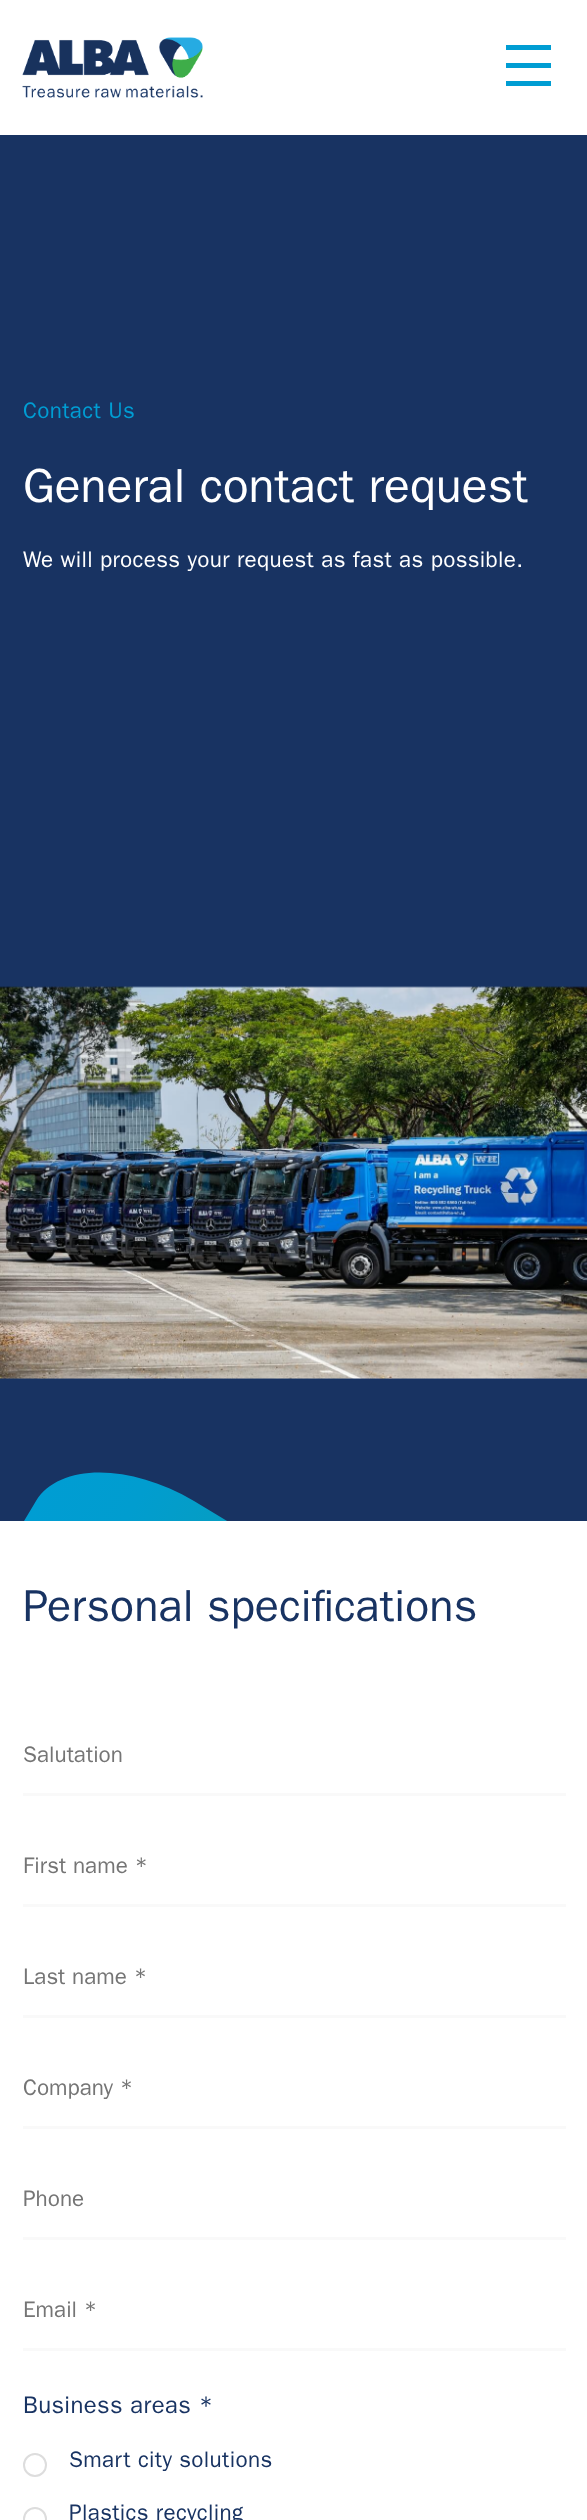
<svg xmlns="http://www.w3.org/2000/svg" width="587" height="2520">
	<defs>
		<clipPath id="clip1"><rect x="0" y="135" width="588" height="1386" /></clipPath>
		<linearGradient id="g1" gradientUnits="userSpaceOnUse" x1="9" y1="1547" x2="394" y2="1779"><stop offset="0" stop-color="#009DD3" /><stop offset="0.19" stop-color="#019DCF" /><stop offset="0.35" stop-color="#059DC5" /><stop offset="0.49" stop-color="#0C9DB4" /><stop offset="0.62" stop-color="#159E9D" /><stop offset="0.75" stop-color="#229F7E" /><stop offset="0.88" stop-color="#319F58" /><stop offset="1" stop-color="#43A02C" /><stop offset="1" stop-color="#44A12B" /></linearGradient>
	</defs>
	<rect width="100%" height="100%" fill="#FFFFFF" />
	<image x="22" y="37" width="181" height="61" href="assets/img1.png" />
	<rect x="506" y="45" width="45" height="5" fill="#009DD3" />
	<rect x="506" y="63" width="45" height="5" fill="#009DD3" />
	<rect x="506" y="81" width="45" height="5" fill="#009DD3" />
	<rect x="0" y="135" width="587" height="1386" fill="#183362" />
	<text x="23" y="418" font-family="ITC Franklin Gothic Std" font-size="22.5" letter-spacing="0.35" fill="#009DD3">Contact Us</text>
	<text x="23" y="502" font-family="ITC Franklin Gothic Std" font-size="48" fill="#FFFFFF">General contact request</text>
	<text x="23" y="567" font-family="ITC Franklin Gothic Std" font-size="22.5" letter-spacing="0.35" fill="#FFFFFF">We will process your request as fast as possible.</text>
	<image x="0" y="986" width="587" height="393" href="assets/img2.png" />
	<g clip-path="url(#clip1)">
		<path d="M194 1501L348 1594C412 1632 445 1694 422 1733L367 1825C344 1864 273 1864 209 1825L55 1732C-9 1694-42 1632-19 1593L36 1501C59 1463 130 1463 194 1501Z" fill="url(#g1)" />
	</g>
	<text x="23" y="1621" font-family="ITC Franklin Gothic Std" font-size="45" fill="#183362">Personal specifications</text>
	<rect x="23" y="1793" width="543" height="3" fill="#F9F9F9" />
	<text x="23" y="1762" font-family="ITC Franklin Gothic Std" font-size="22.5" fill="#757575">Salutation</text>
	<rect x="23" y="1904" width="543" height="3" fill="#F9F9F9" />
	<text x="23" y="1873" font-family="ITC Franklin Gothic Std" font-size="22.5" fill="#757575">First name *</text>
	<rect x="23" y="2015" width="543" height="3" fill="#F9F9F9" />
	<text x="23" y="1984" font-family="ITC Franklin Gothic Std" font-size="22.5" fill="#757575">Last name *</text>
	<rect x="23" y="2126" width="543" height="3" fill="#F9F9F9" />
	<text x="23" y="2095" font-family="ITC Franklin Gothic Std" font-size="22.5" fill="#757575">Company *</text>
	<rect x="23" y="2237" width="543" height="3" fill="#F9F9F9" />
	<text x="23" y="2206" font-family="ITC Franklin Gothic Std" font-size="22.5" fill="#757575">Phone</text>
	<rect x="23" y="2348" width="543" height="3" fill="#F9F9F9" />
	<text x="23" y="2317" font-family="ITC Franklin Gothic Std" font-size="22.5" fill="#757575">Email *</text>
	<text x="23" y="2413" font-family="ITC Franklin Gothic Std" font-size="24" letter-spacing="0.35" fill="#183362">Business areas *</text>
	<circle cx="35" cy="2465" r="11" fill="none" stroke="#DDDDDD" stroke-width="2" />
	<text x="69" y="2467" font-family="ITC Franklin Gothic Std" font-size="22.5" letter-spacing="0.35" fill="#183362">Smart city solutions</text>
	<circle cx="35" cy="2519" r="11" fill="none" stroke="#DDDDDD" stroke-width="2" />
	<text x="69" y="2520" font-family="ITC Franklin Gothic Std" font-size="22.5" letter-spacing="0.35" fill="#183362">Plastics recycling</text>
</svg>
